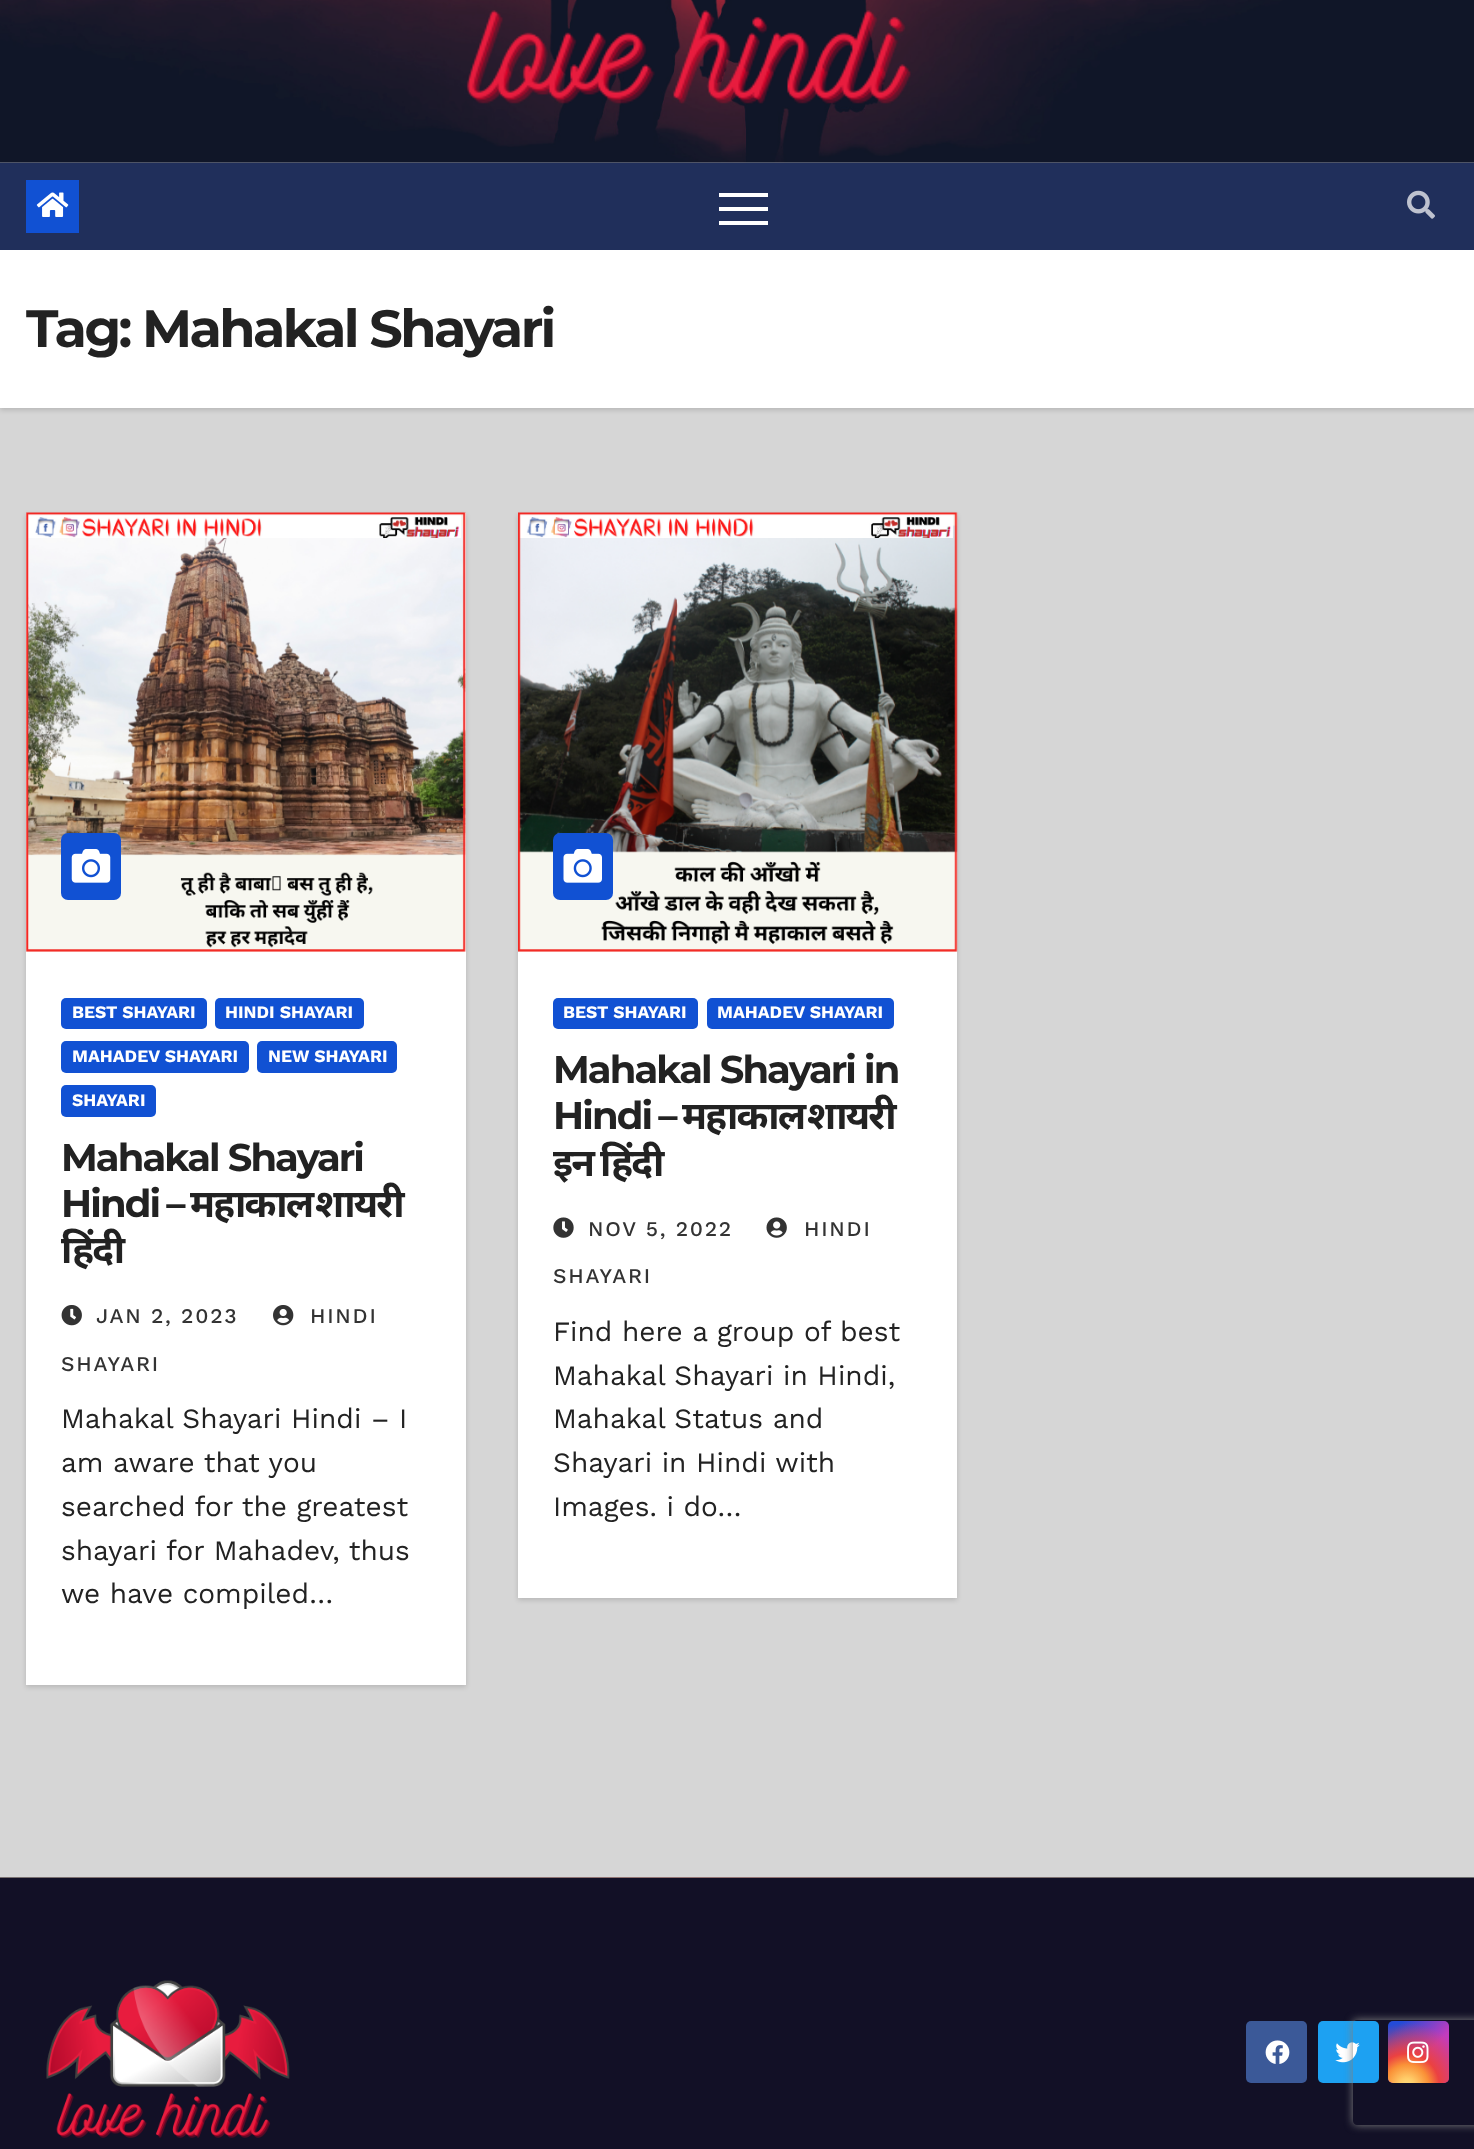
<svg xmlns="http://www.w3.org/2000/svg" width="1474" height="2149">
	<defs>
		<linearGradient id="g1" gradientUnits="userSpaceOnUse" x1="1388" y1="2021" x2="1449" y2="2083"><stop offset="0.12" stop-color="#234BD7" /><stop offset="0.58" stop-color="#C33CBE" /></linearGradient>
		<radialGradient id="g2" gradientUnits="userSpaceOnUse" cx="1407" cy="2086" r="77"><stop offset="0" stop-color="#FFE17D" /><stop offset="0.1" stop-color="#FFCD69" /><stop offset="0.28" stop-color="#FA9137" /><stop offset="0.42" stop-color="#EB4141" /><stop offset="0.82" stop-color="#EB4141" stop-opacity="0" /></radialGradient>
		<clipPath id="clip1"><path d="M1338 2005H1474V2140H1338ZM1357 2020H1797C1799 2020 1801 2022 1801 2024V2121C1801 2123 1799 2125 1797 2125H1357C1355 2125 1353 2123 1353 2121V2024C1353 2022 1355 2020 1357 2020Z" clip-rule="evenodd" /></clipPath>
	</defs>
	<rect width="100%" height="100%" fill="#D6D6D6" />
	<rect x="0" y="162" width="1474" height="1" fill="#8D93A5" />
	<image x="0" y="0" width="1474" height="163" href="assets/img1.png" />
	<image x="466" y="10" width="445" height="94" href="assets/img2.png" />
	<rect x="0" y="252" width="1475" height="158" fill="#000000" fill-opacity="0.15" filter="blur(2.5px)" />
	<rect x="0" y="163" width="1474" height="87" fill="#202F5B" />
	<rect x="26" y="180" width="53" height="53" fill="#1151D3" />
	<image x="36" y="192" width="33" height="25" href="assets/img3.png" />
	<rect x="719" y="193" width="49" height="4" fill="#FFFFFF" />
	<rect x="719" y="207" width="49" height="4" fill="#FFFFFF" />
	<rect x="719" y="221" width="49" height="4" fill="#FFFFFF" />
	<image x="1407" y="190" width="28" height="29" href="assets/img4.png" />
	<rect x="0" y="250" width="1474" height="158" fill="#FFFFFF" />
	<text x="26" y="347" font-family="Montserrat" font-size="52.5" font-weight="700" letter-spacing="-2.6" fill="#222222">Tag: Mahakal Shayari</text>
	<rect x="26" y="515" width="440" height="1172" fill="#000000" fill-opacity="0.15" filter="blur(2.5px)" />
	<rect x="26" y="513" width="440" height="1172" fill="#FFFFFF" />
	<image x="26" y="512" width="440" height="440" href="assets/img5.png" />
	<rect x="61" y="833" width="60" height="67" rx="7" fill="#1151D3" />
	<image x="71" y="849" width="40" height="34" href="assets/img6.png" />
	<rect x="61" y="998" width="146" height="31" rx="5" fill="#1151D3" />
	<text x="72" y="1018" font-family="Work Sans" font-size="17.5" font-weight="700" fill="#FFFFFF">BEST SHAYARI</text>
	<rect x="215" y="998" width="149" height="31" rx="5" fill="#1151D3" />
	<text x="225" y="1018" font-family="Work Sans" font-size="17.5" font-weight="700" fill="#FFFFFF">HINDI SHAYARI</text>
	<rect x="61" y="1041" width="188" height="32" rx="5" fill="#1151D3" />
	<text x="72" y="1062" font-family="Work Sans" font-size="17.5" font-weight="700" fill="#FFFFFF">MAHADEV SHAYARI</text>
	<rect x="257" y="1041" width="140" height="32" rx="5" fill="#1151D3" />
	<text x="268" y="1062" font-family="Work Sans" font-size="17.5" font-weight="700" fill="#FFFFFF">NEW SHAYARI</text>
	<rect x="61" y="1085" width="95" height="32" rx="5" fill="#1151D3" />
	<text x="72" y="1106" font-family="Work Sans" font-size="17.5" font-weight="700" fill="#FFFFFF">SHAYARI</text>
	<g font-family="Montserrat" font-size="38.5" font-weight="700" letter-spacing="-1.9" fill="#222222">
		<text x="61" y="1171">Mahakal Shayari</text>
		<text x="61" y="1217" word-spacing="-2">Hindi –</text>
	</g>
	<g font-family="Noto Sans" font-size="38.5" font-weight="700" letter-spacing="-1.9" fill="#222222">
		<text x="190" y="1217">महाकाल</text>
		<text x="315" y="1217">शायरी</text>
		<text x="61" y="1263">हिंदी</text>
	</g>
	<image x="61" y="1305" width="21" height="21" href="assets/img7.png" />
	<text x="96" y="1323" font-family="Work Sans" font-size="21" font-weight="500" letter-spacing="1.75" fill="#333333">JAN 2, 2023</text>
	<image x="273" y="1305" width="21" height="21" href="assets/img8.png" />
	<g font-family="Work Sans" font-size="21" font-weight="500" letter-spacing="1.75" fill="#333333">
		<text x="310" y="1323">HINDI</text>
		<text x="61" y="1371">SHAYARI</text>
	</g>
	<g font-family="Work Sans" font-size="28" fill="#222222">
		<text x="61" y="1428">Mahakal Shayari Hindi – I</text>
		<text x="61" y="1472">am aware that you</text>
		<text x="61" y="1516">searched for the greatest</text>
		<text x="61" y="1560">shayari for Mahadev, thus</text>
		<text x="61" y="1603">we have compiled…</text>
	</g>
	<rect x="518" y="515" width="439" height="1085" fill="#000000" fill-opacity="0.15" filter="blur(2.5px)" />
	<rect x="518" y="951" width="439" height="647" fill="#FFFFFF" />
	<image x="518" y="512" width="440" height="440" href="assets/img9.png" />
	<rect x="553" y="833" width="60" height="67" rx="7" fill="#1151D3" />
	<image x="563" y="849" width="39" height="34" href="assets/img10.png" />
	<rect x="553" y="998" width="145" height="31" rx="5" fill="#1151D3" />
	<text x="563" y="1018" font-family="Work Sans" font-size="17.5" font-weight="700" fill="#FFFFFF">BEST SHAYARI</text>
	<rect x="707" y="998" width="187" height="31" rx="5" fill="#1151D3" />
	<text x="717" y="1018" font-family="Work Sans" font-size="17.5" font-weight="700" fill="#FFFFFF">MAHADEV SHAYARI</text>
	<g font-family="Montserrat" font-size="38.5" font-weight="700" letter-spacing="-1.9" fill="#222222">
		<text x="553" y="1083">Mahakal Shayari in</text>
		<text x="553" y="1129" word-spacing="-2">Hindi –</text>
	</g>
	<g font-family="Noto Sans" font-size="38.5" font-weight="700" letter-spacing="-1.9" fill="#222222">
		<text x="682" y="1129">महाकाल</text>
		<text x="807" y="1129">शायरी</text>
		<text x="553" y="1176" word-spacing="-1">इन हिंदी</text>
	</g>
	<image x="553" y="1217" width="21" height="21" href="assets/img11.png" />
	<text x="588" y="1236" font-family="Work Sans" font-size="21" font-weight="500" letter-spacing="1.75" fill="#333333">NOV 5, 2022</text>
	<image x="766" y="1217" width="21" height="21" href="assets/img12.png" />
	<g font-family="Work Sans" font-size="21" font-weight="500" letter-spacing="1.75" fill="#333333">
		<text x="804" y="1236">HINDI</text>
		<text x="553" y="1283">SHAYARI</text>
	</g>
	<g font-family="Work Sans" font-size="28" fill="#222222">
		<text x="553" y="1341">Find here a group of best</text>
		<text x="553" y="1385">Mahakal Shayari in Hindi,</text>
		<text x="553" y="1428">Mahakal Status and</text>
		<text x="553" y="1472">Shayari in Hindi with</text>
		<text x="553" y="1516">Images. i do…</text>
	</g>
	<image x="0" y="1877" width="1474" height="1" href="assets/img13.png" />
	<rect x="0" y="1878" width="1474" height="271" fill="#121026" />
	<image x="46" y="1980" width="244" height="158" href="assets/img14.png" />
	<rect x="1246" y="2021" width="61" height="62" rx="5" fill="#3B5998" />
	<image x="1265" y="2040" width="25" height="24" href="assets/img15.png" />
	<rect x="1318" y="2021" width="61" height="62" rx="5" fill="#1DA1F2" />
	<image x="1335" y="2042" width="25" height="21" href="assets/img16.png" />
	<rect x="1388" y="2021" width="61" height="62" rx="5" fill="url(#g1)" />
	<rect x="1388" y="2021" width="61" height="62" rx="5" fill="url(#g2)" />
	<image x="1407" y="2041" width="22" height="22" href="assets/img17.png" />
	<g clip-path="url(#clip1)">
		<rect x="1353" y="2020" width="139" height="105" rx="4" fill="#808080" filter="blur(4.5px)" />
	</g>
</svg>
